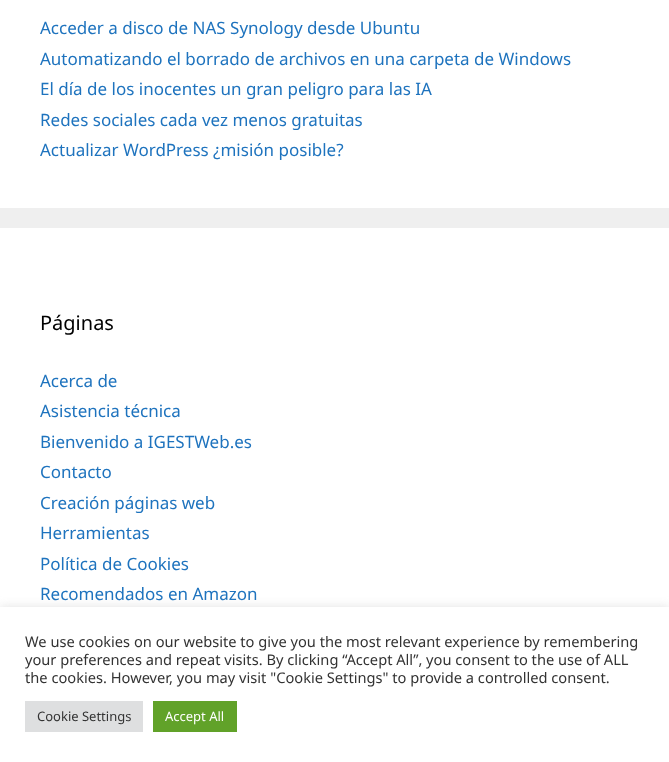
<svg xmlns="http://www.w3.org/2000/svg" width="669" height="762">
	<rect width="100%" height="100%" fill="#EFEFEF" />
	<rect x="0" y="0" width="669" height="208" fill="#FFFFFF" />
	<g font-family="Noto Sans" font-size="17" fill="#1E73BE">
		<text x="40" y="34">Acceder a disco de NAS Synology desde Ubuntu</text>
		<text x="40" y="65">Automatizando el borrado de archivos en una carpeta de Windows</text>
		<text x="40" y="95">El día de los inocentes un gran peligro para las IA</text>
		<text x="40" y="126">Redes sociales cada vez menos gratuitas</text>
		<text x="40" y="156">Actualizar WordPress ¿misión posible?</text>
	</g>
	<rect x="0" y="228" width="669" height="379" fill="#FFFFFF" />
	<text x="40" y="330" font-family="Noto Sans" font-size="20" fill="#000000">Páginas</text>
	<g font-family="Noto Sans" font-size="17" fill="#1E73BE">
		<text x="40" y="387">Acerca de</text>
		<text x="40" y="417">Asistencia técnica</text>
		<text x="40" y="448">Bienvenido a IGESTWeb.es</text>
		<text x="40" y="478">Contacto</text>
		<text x="40" y="509">Creación páginas web</text>
		<text x="40" y="539">Herramientas</text>
		<text x="40" y="570">Política de Cookies</text>
		<text x="40" y="600">Recomendados en Amazon</text>
	</g>
	<rect x="0" y="606" width="669" height="155" fill="#ACABAB" fill-opacity="0.3" filter="blur(5px)" />
	<rect x="0" y="607" width="669" height="155" fill="#FFFFFF" />
	<g font-family="Noto Sans" font-size="14.65" fill="#333333">
		<text x="25" y="647">We use cookies on our website to give you the most relevant experience by remembering</text>
		<text x="25" y="665">your preferences and repeat visits. By clicking “Accept All”, you consent to the use of ALL</text>
		<text x="25" y="683">the cookies. However, you may visit "Cookie Settings" to provide a controlled consent.</text>
	</g>
	<rect x="25" y="701" width="118" height="31" fill="#DEDFE0" />
	<text x="37" y="721" font-family="Noto Sans" font-size="13" fill="#333333">Cookie Settings</text>
	<rect x="153" y="701" width="84" height="31" fill="#61A229" />
	<text x="165" y="721" font-family="Noto Sans" font-size="13" fill="#FFFFFF">Accept All</text>
</svg>
